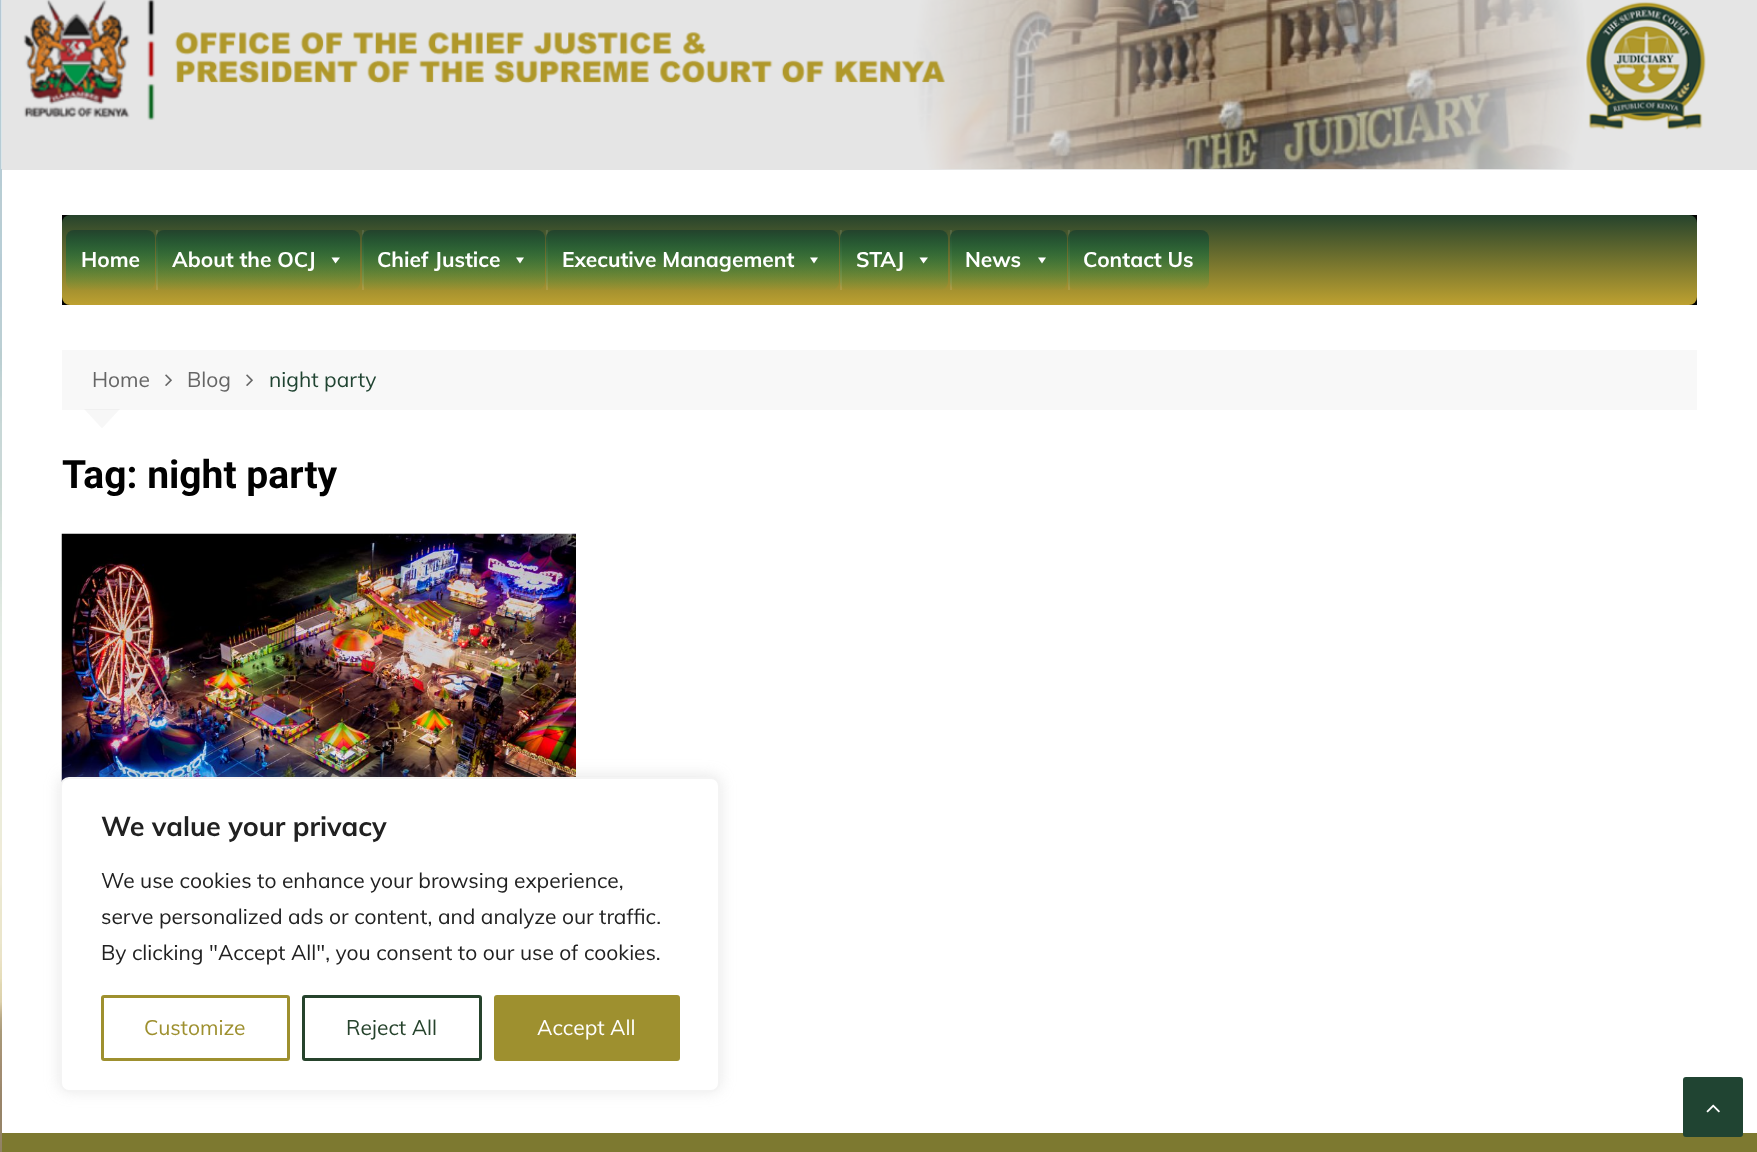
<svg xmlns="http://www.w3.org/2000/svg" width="1757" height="1152">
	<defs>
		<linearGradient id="g1" gradientUnits="userSpaceOnUse" x1="879" y1="214" x2="879" y2="305"><stop offset="0" stop-color="#24422C" /><stop offset="1" stop-color="#BEA130" /></linearGradient>
		<linearGradient id="g2" gradientUnits="userSpaceOnUse" x1="110" y1="230" x2="110" y2="290"><stop offset="0" stop-color="#24422C" /><stop offset="1" stop-color="#00A551" stop-opacity="0.02" /></linearGradient>
		<linearGradient id="g3" gradientUnits="userSpaceOnUse" x1="258" y1="230" x2="258" y2="290"><stop offset="0" stop-color="#24422C" /><stop offset="1" stop-color="#00A551" stop-opacity="0.02" /></linearGradient>
		<linearGradient id="g4" gradientUnits="userSpaceOnUse" x1="453" y1="230" x2="453" y2="290"><stop offset="0" stop-color="#24422C" /><stop offset="1" stop-color="#00A551" stop-opacity="0.02" /></linearGradient>
		<linearGradient id="g5" gradientUnits="userSpaceOnUse" x1="692" y1="230" x2="692" y2="290"><stop offset="0" stop-color="#24422C" /><stop offset="1" stop-color="#00A551" stop-opacity="0.02" /></linearGradient>
		<linearGradient id="g6" gradientUnits="userSpaceOnUse" x1="894" y1="230" x2="894" y2="290"><stop offset="0" stop-color="#24422C" /><stop offset="1" stop-color="#00A551" stop-opacity="0.02" /></linearGradient>
		<linearGradient id="g7" gradientUnits="userSpaceOnUse" x1="1008" y1="230" x2="1008" y2="290"><stop offset="0" stop-color="#24422C" /><stop offset="1" stop-color="#00A551" stop-opacity="0.02" /></linearGradient>
		<linearGradient id="g8" gradientUnits="userSpaceOnUse" x1="1139" y1="230" x2="1139" y2="290"><stop offset="0" stop-color="#24422C" /><stop offset="1" stop-color="#00A551" stop-opacity="0.02" /></linearGradient>
	</defs>
	<rect width="100%" height="100%" fill="#FFFFFF" />
	<image x="0" y="0" width="2" height="1152" href="assets/img1.png" />
	<image x="1" y="0" width="1705" height="169" href="assets/img2.png" />
	<rect x="2" y="0" width="1755" height="170" fill="#000000" fill-opacity="0.1" />
	<rect x="62" y="215" width="1635" height="90" fill="#000000" />
	<rect x="62" y="215" width="1635" height="90" rx="8" fill="url(#g1)" />
	<rect x="66" y="230" width="89" height="60" rx="8" fill="url(#g2)" />
	<text x="81" y="267" font-family="Muli" font-size="21" font-weight="700" fill="#FFFFFF">Home</text>
	<rect x="156" y="230" width="2" height="60" fill="#FFFFFF" fill-opacity="0.1" />
	<rect x="155" y="230" width="2" height="36" fill="#BEA130" fill-opacity="0.04" />
	<rect x="156" y="230" width="204" height="60" rx="8" fill="url(#g3)" />
	<text x="172" y="267" font-family="Muli" font-size="21" font-weight="700" fill="#FFFFFF">About the OCJ</text>
	<path d="M340 257.5L335.5 263.5L331.5 257.5Z" fill="#FFFFFF" />
	<rect x="362" y="230" width="2" height="60" fill="#FFFFFF" fill-opacity="0.1" />
	<rect x="360" y="230" width="2" height="36" fill="#BEA130" fill-opacity="0.04" />
	<rect x="362" y="230" width="183" height="60" rx="8" fill="url(#g4)" />
	<text x="377" y="267" font-family="Muli" font-size="21" font-weight="700" fill="#FFFFFF">Chief Justice</text>
	<path d="M524 257.5L520 263.5L516 257.5Z" fill="#FFFFFF" />
	<rect x="546" y="230" width="2" height="60" fill="#FFFFFF" fill-opacity="0.1" />
	<rect x="545" y="230" width="2" height="36" fill="#BEA130" fill-opacity="0.04" />
	<rect x="546" y="230" width="293" height="60" rx="8" fill="url(#g5)" />
	<text x="562" y="267" font-family="Muli" font-size="21" font-weight="700" fill="#FFFFFF">Executive Management</text>
	<path d="M818 257.5L814 263.5L810 257.5Z" fill="#FFFFFF" />
	<rect x="840" y="230" width="2" height="60" fill="#FFFFFF" fill-opacity="0.1" />
	<rect x="839" y="230" width="2" height="36" fill="#BEA130" fill-opacity="0.04" />
	<rect x="840" y="230" width="108" height="60" rx="8" fill="url(#g6)" />
	<text x="856" y="267" font-family="Muli" font-size="21" font-weight="700" fill="#FFFFFF">STAJ</text>
	<path d="M928 257.5L923.5 263.5L919.5 257.5Z" fill="#FFFFFF" />
	<rect x="950" y="230" width="2" height="60" fill="#FFFFFF" fill-opacity="0.1" />
	<rect x="948" y="230" width="2" height="36" fill="#BEA130" fill-opacity="0.04" />
	<rect x="950" y="230" width="117" height="60" rx="8" fill="url(#g7)" />
	<text x="965" y="267" font-family="Muli" font-size="21" font-weight="700" fill="#FFFFFF">News</text>
	<path d="M1046 257.5L1042 263.5L1038 257.5Z" fill="#FFFFFF" />
	<rect x="1068" y="230" width="2" height="60" fill="#FFFFFF" fill-opacity="0.1" />
	<rect x="1067" y="230" width="2" height="36" fill="#BEA130" fill-opacity="0.04" />
	<rect x="1068" y="230" width="141" height="60" rx="8" fill="url(#g8)" />
	<text x="1083" y="267" font-family="Muli" font-size="21" font-weight="700" fill="#FFFFFF">Contact Us</text>
	<rect x="62" y="350" width="1635" height="60" fill="#F8F8F8" />
	<text x="92" y="387" font-family="Muli" font-size="21" fill="#666666">Home</text>
	<image x="165" y="374" width="7" height="12" href="assets/img3.png" />
	<text x="187" y="387" font-family="Muli" font-size="21" fill="#666666">Blog</text>
	<image x="246" y="374" width="7" height="12" href="assets/img3.png" />
	<text x="269" y="387" font-family="Muli" font-size="21" fill="#204432">night party</text>
	<path d="M84 409H120L102 428.5Z" fill="#000000" fill-opacity="0.03" />
	<text x="62" y="488" font-family="Roboto" font-size="39" font-weight="700" fill="#010101">Tag: night party</text>
	<image x="61" y="533" width="515" height="249" href="assets/img4.png" />
	<rect x="2" y="1133" width="1755" height="19" fill="#7D7930" />
	<rect x="60" y="776" width="660" height="315" rx="9" fill="#ACABAB" fill-opacity="0.3" filter="blur(7.5px)" />
	<rect x="61" y="778" width="658" height="313" rx="8" fill="#FFFFFF" stroke="#F4F4F4" stroke-width="2" />
	<text x="101" y="836" font-family="Muli" font-size="27" font-weight="700" fill="#212121">We value your privacy</text>
	<g font-family="Muli" font-size="21" fill="#212121">
		<text x="101" y="888">We use cookies to enhance your browsing experience,</text>
		<text x="101" y="924">serve personalized ads or content, and analyze our traffic.</text>
		<text x="101" y="960">By clicking "Accept All", you consent to our use of cookies.</text>
	</g>
	<rect x="102.5" y="996.5" width="186" height="63" rx="1.5" fill="none" stroke="#9E902F" stroke-width="3" />
	<text x="144" y="1035" font-family="Muli" font-size="21" fill="#9E902F">Customize</text>
	<rect x="303.5" y="996.5" width="177" height="63" rx="1.5" fill="none" stroke="#26432C" stroke-width="3" />
	<text x="346" y="1035" font-family="Muli" font-size="21" fill="#26432C">Reject All</text>
	<rect x="495.5" y="996.5" width="183" height="63" rx="1.5" fill="#9E902F" stroke="#9E902F" stroke-width="3" />
	<text x="537" y="1035" font-family="Muli" font-size="21" fill="#FFFFFF">Accept All</text>
	<rect x="1683" y="1077" width="60" height="60" rx="3" fill="#204432" />
	<image x="1706" y="1104" width="14" height="9" href="assets/img5.png" />
</svg>
